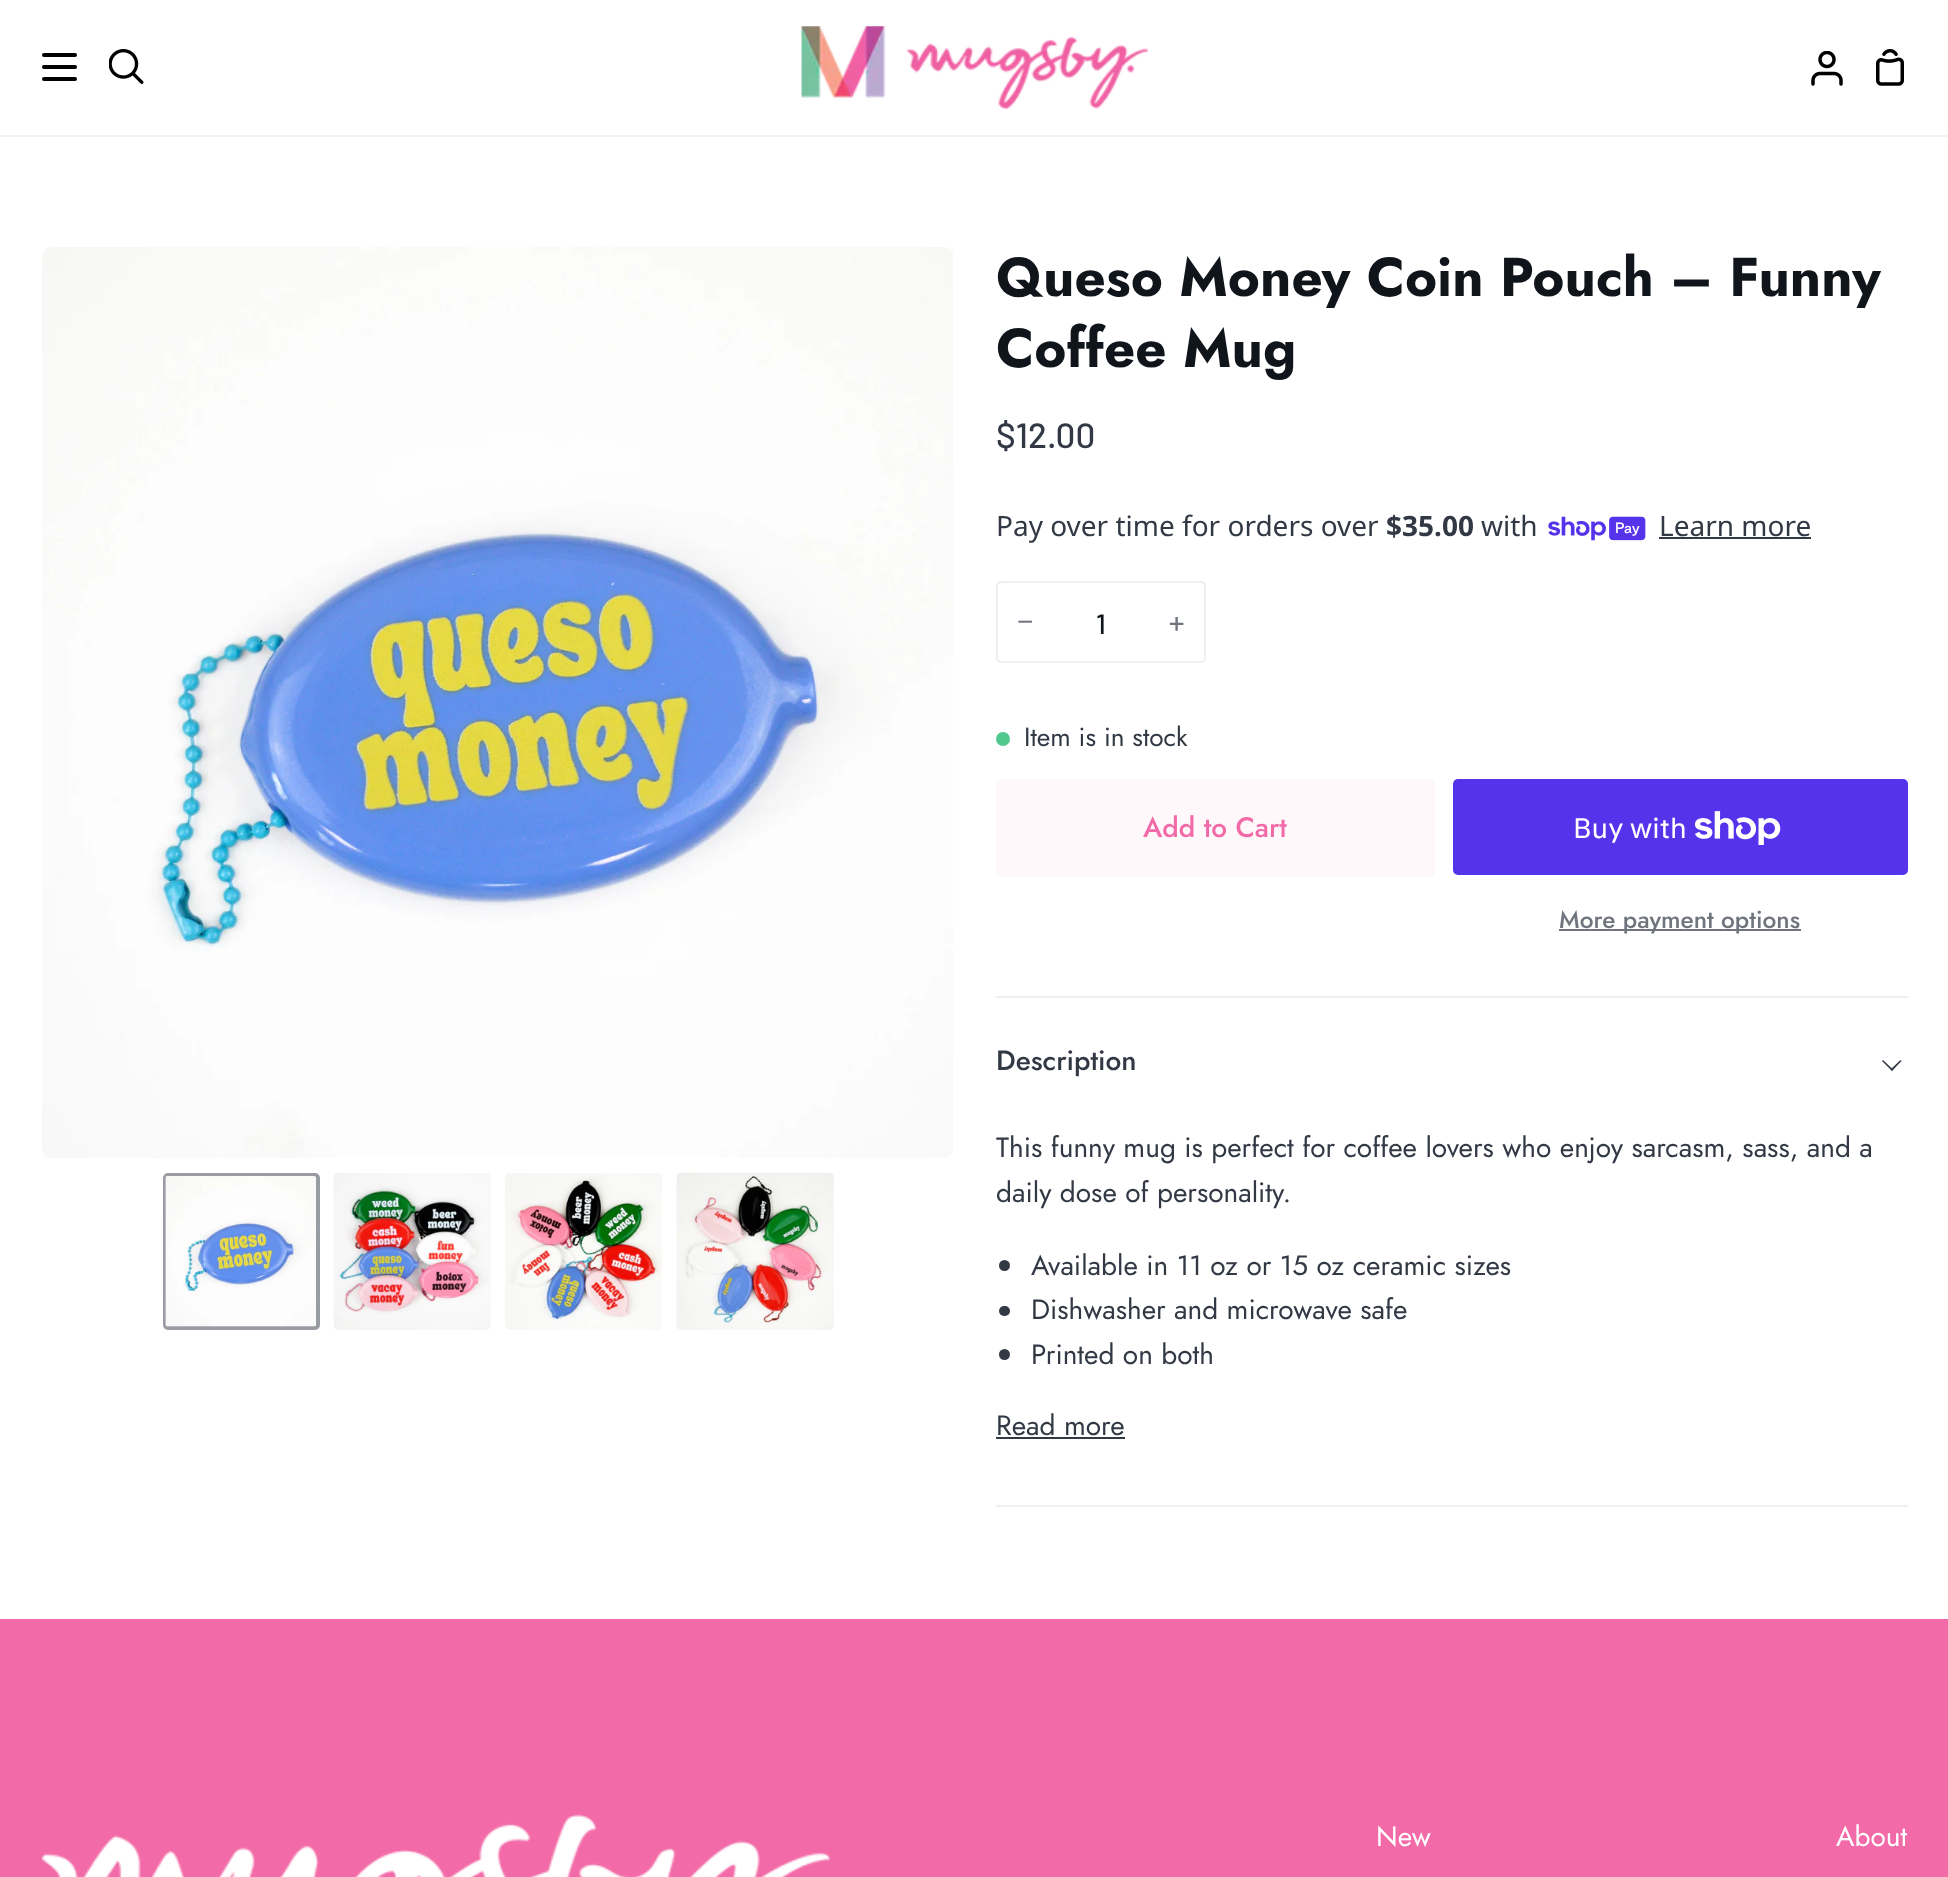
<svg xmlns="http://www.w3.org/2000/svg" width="1948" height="1877">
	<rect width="100%" height="100%" fill="#FFFFFF" />
	<rect x="0" y="135" width="1948" height="2" fill="#F2F2F2" />
	<rect x="42" y="53" width="35" height="4" rx="2" fill="#000000" />
	<rect x="42" y="65" width="35" height="4" rx="2" fill="#000000" />
	<rect x="42" y="77" width="35" height="4" rx="2" fill="#000000" />
	<image x="109" y="49" width="35" height="35" href="assets/img1.png" />
	<image x="801" y="26" width="347" height="83" href="assets/img2.png" />
	<image x="1811" y="51" width="32" height="35" href="assets/img3.png" />
	<image x="1876" y="49" width="28" height="37" href="assets/img4.png" />
	<image x="42" y="247" width="911" height="911" href="assets/img5.png" />
	<rect x="165" y="1175" width="153" height="153" rx="3" fill="none" stroke="#999CA2" stroke-width="4" />
	<image x="165" y="1176" width="151" height="151" href="assets/img6.png" />
	<image x="333" y="1173" width="158" height="157" href="assets/img7.png" />
	<image x="505" y="1173" width="157" height="157" href="assets/img8.png" />
	<image x="676" y="1172" width="158" height="158" href="assets/img9.png" />
	<g font-family="Jost" font-size="54.6" font-weight="700" fill="#10141B">
		<text x="996" y="296">Queso Money Coin Pouch – Funny</text>
		<text x="996" y="367">Coffee Mug</text>
	</g>
	<text x="996" y="448" font-family="Barlow" font-size="35" font-weight="500" fill="#323945">$12.00</text>
	<text x="996" y="536" font-family="Noto Sans" font-size="28" fill="#323945">Pay over time for orders over</text>
	<text x="1386" y="536" font-family="Noto Sans" font-size="28" font-weight="700" fill="#323945">$35.00</text>
	<text x="1481" y="536" font-family="Noto Sans" font-size="28" fill="#323945">with</text>
	<image x="1548" y="516" width="98" height="25" href="assets/img10.png" />
	<text x="1659" y="536" font-family="Noto Sans" font-size="28" fill="#323945">Learn more</text>
	<rect x="1659" y="537" width="152" height="2" fill="#323945" />
	<rect x="997" y="582" width="208" height="80" rx="4" fill="none" stroke="#EEEFF1" stroke-width="2" />
	<text x="1017" y="631" font-family="Liberation Sans" font-size="28" fill="#70747D">−</text>
	<text x="1096" y="634" font-family="Barlow" font-size="28" font-weight="500" fill="#10141B">1</text>
	<text x="1168" y="631" font-family="Jost" font-size="28" fill="#70747D">+</text>
	<circle cx="1003" cy="739" r="7" fill="#51C88E" />
	<text x="1024" y="746" font-family="Jost" font-size="26.25" fill="#323945">Item is in stock</text>
	<rect x="996" y="779" width="439" height="98" rx="5" fill="#FEF8FB" />
	<text x="1143" y="837" font-family="Jost" font-size="28" font-weight="500" fill="#F26AA7">Add to Cart</text>
	<rect x="1453" y="779" width="455" height="96" rx="5" fill="#5433EB" />
	<text x="1573" y="838" font-family="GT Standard" font-size="28" fill="#FFFFFF">Buy with</text>
	<image x="1695" y="811" width="86" height="34" href="assets/img11.png" />
	<rect x="1559" y="929" width="242" height="2" fill="#70747D" />
	<text x="1559" y="928" font-family="Jost" font-size="24.5" font-weight="500" fill="#70747D">More payment options</text>
	<rect x="996" y="996" width="912" height="2" fill="#EEEFF1" />
	<rect x="996" y="1505" width="912" height="2" fill="#EEEFF1" />
	<text x="996" y="1070" font-family="Jost" font-size="28" font-weight="500" fill="#323945">Description</text>
	<path d="M1890.5 1069.5L1900.5 1060L1901.5 1061L1892 1071Z" fill="#323945" />
	<path d="M1882 1061L1883 1060L1893 1069.5L1892 1071Z" fill="#323945" />
	<g font-family="Jost" font-size="28" fill="#323945">
		<text x="996" y="1157">This funny mug is perfect for coffee lovers who enjoy sarcasm, sass, and a</text>
		<text x="996" y="1202">daily dose of personality.</text>
	</g>
	<circle cx="1004.5" cy="1265.5" r="5.5" fill="#323945" />
	<text x="1031" y="1275" font-family="Jost" font-size="28" fill="#323945">Available in 11 oz or 15 oz ceramic sizes</text>
	<rect x="999" y="1306" width="11" height="10" rx="5" fill="#323945" />
	<text x="1031" y="1319" font-family="Jost" font-size="28" fill="#323945">Dishwasher and microwave safe</text>
	<circle cx="1004.5" cy="1354.5" r="5.5" fill="#323945" />
	<g font-family="Jost" font-size="28" fill="#323945">
		<text x="1031" y="1364">Printed on both</text>
		<text x="996" y="1435">Read more</text>
	</g>
	<rect x="996" y="1437" width="129" height="2" fill="#323945" />
	<rect x="0" y="1619" width="1948" height="258" fill="#F26AA7" />
	<image x="42" y="1814" width="788" height="63" href="assets/img12.png" />
	<g font-family="Jost" font-size="28" fill="#FFFFFF">
		<text x="1376" y="1846">New</text>
		<text x="1836" y="1846">About</text>
	</g>
</svg>
